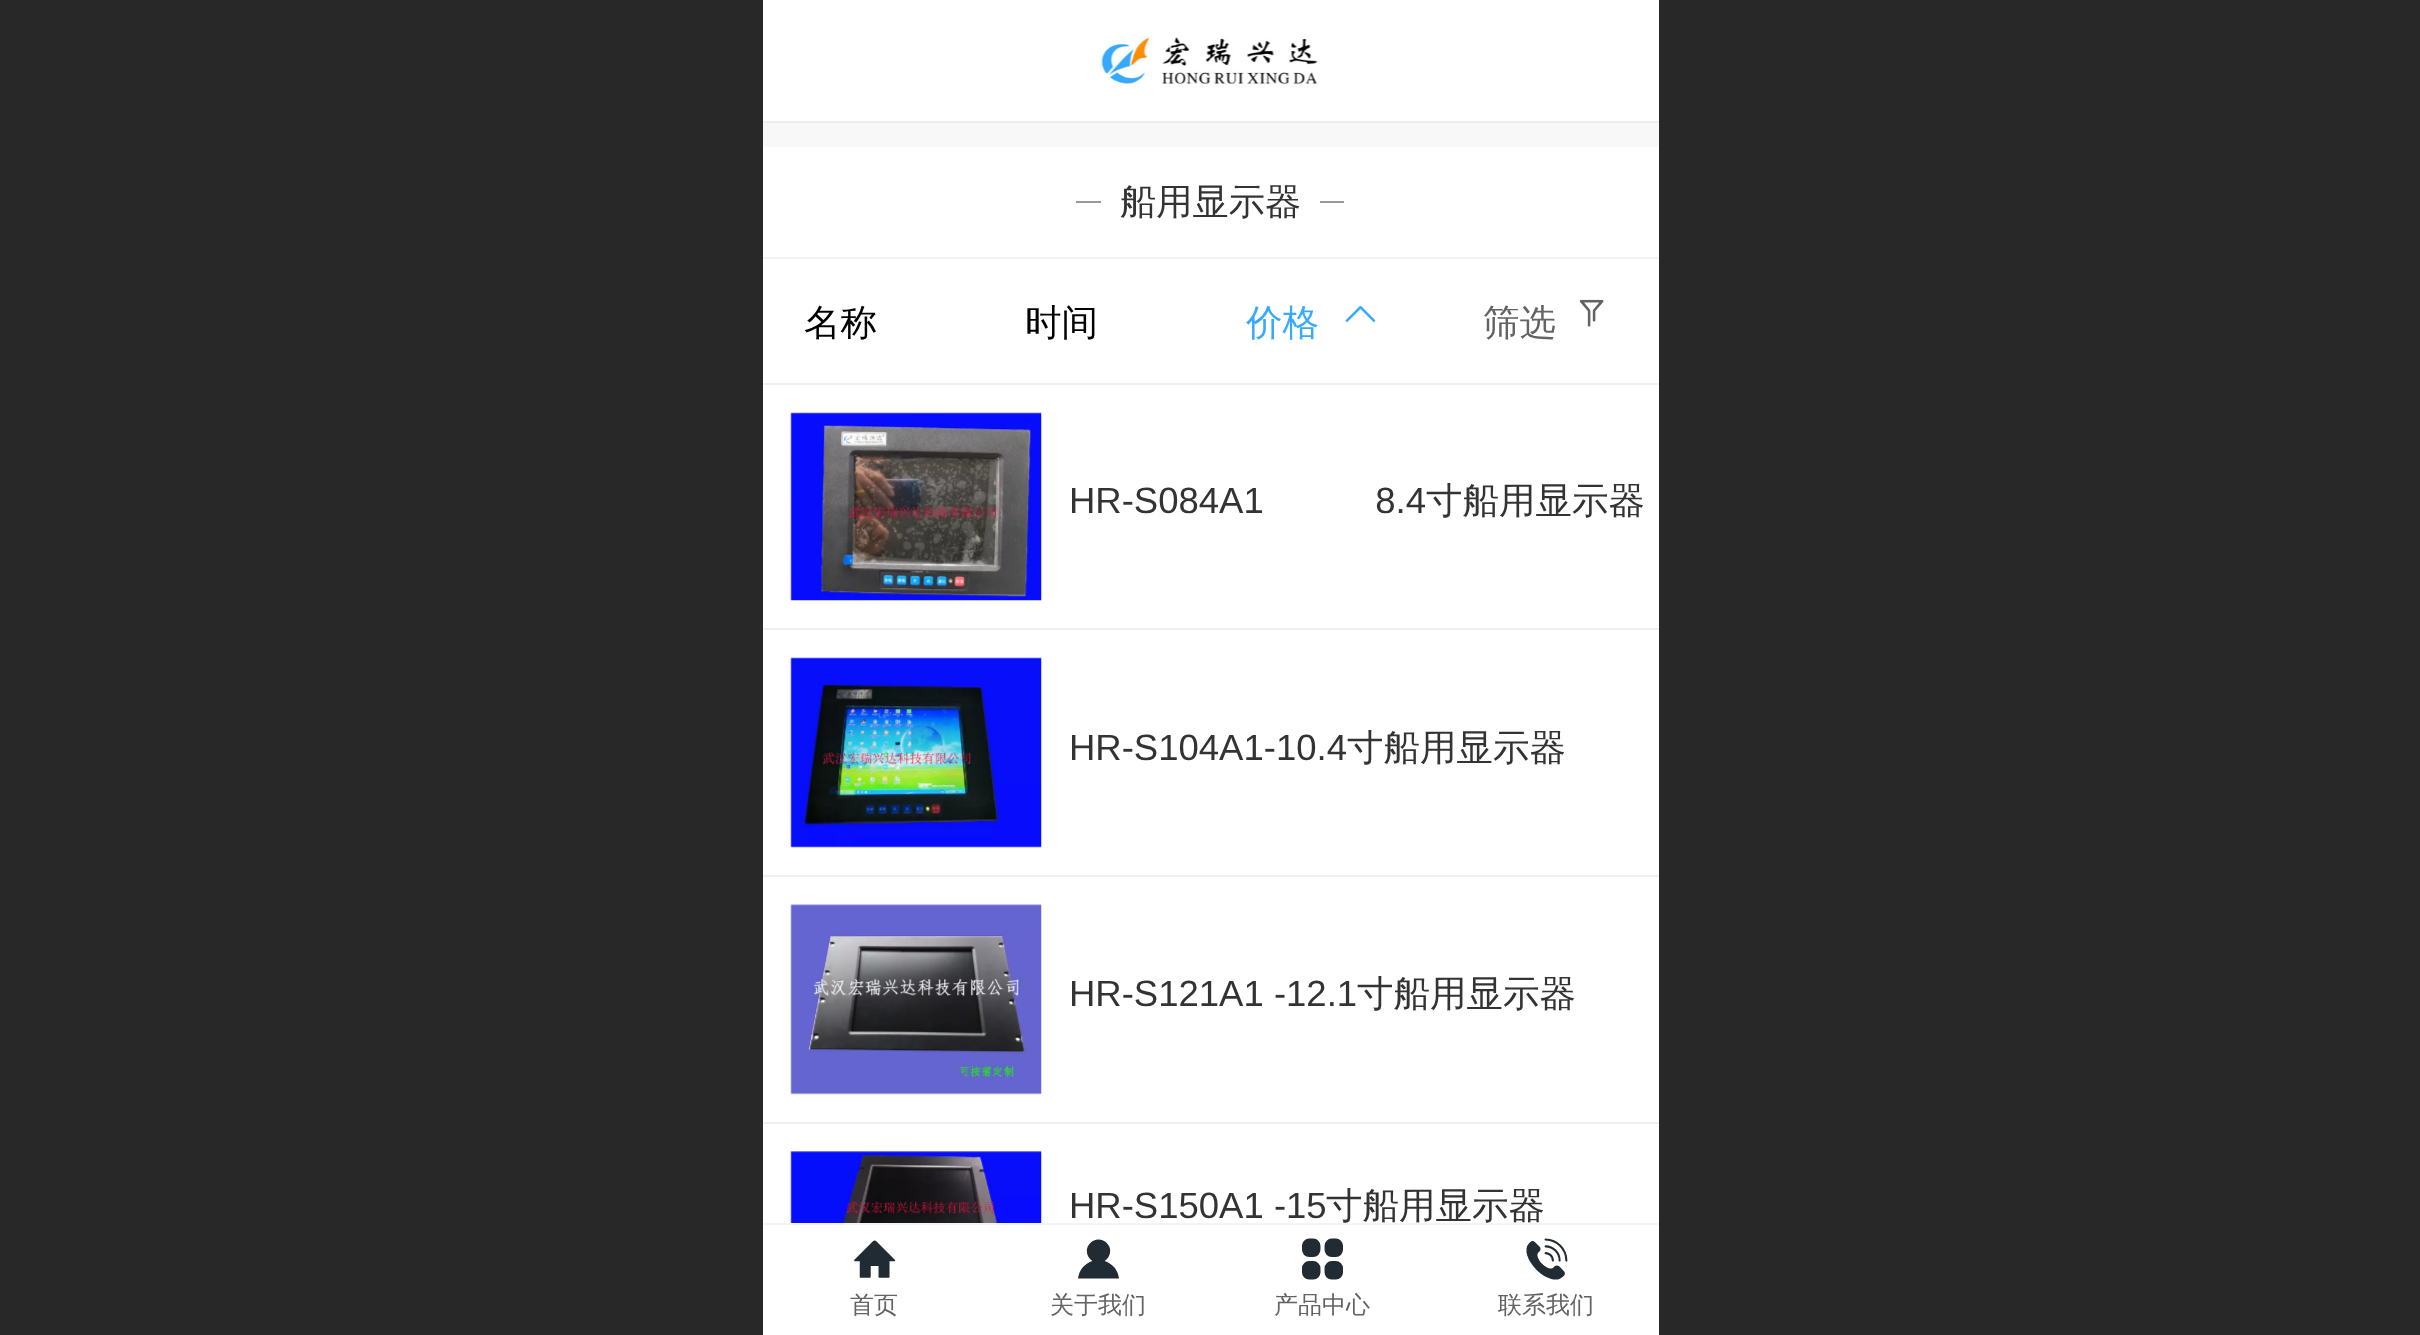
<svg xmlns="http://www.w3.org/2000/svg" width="2420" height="1335">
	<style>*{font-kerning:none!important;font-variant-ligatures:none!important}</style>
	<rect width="100%" height="100%" fill="#F8F8F8" />
	<rect x="0" y="0" width="763" height="1335" fill="#282828" />
	<rect x="763" y="0" width="896" height="121" fill="#FFFFFF" />
	<rect x="763" y="121" width="896" height="2" fill="#EEEEEE" />
	<image x="1099" y="36" width="219" height="51" href="assets/img1.png" />
	<rect x="763" y="147" width="896" height="110" fill="#FFFFFF" />
	<rect x="763" y="257" width="896" height="2" fill="#F3F3F3" />
	<rect x="1076" y="201" width="25" height="2" fill="#999999" />
	<text x="1120" y="214" font-family="WenQuanYi Zen Hei" font-size="36.25" font-weight="500" fill="#333333">船用显示器</text>
	<rect x="1320" y="201" width="24" height="2" fill="#999999" />
	<rect x="763" y="259" width="896" height="964" fill="#FFFFFF" />
	<g font-family="WenQuanYi Zen Hei" font-size="36.5" font-weight="500" fill="#000000">
		<text x="804" y="335">名称</text>
		<text x="1025" y="335">时间</text>
	</g>
	<text x="1246" y="335" font-family="WenQuanYi Zen Hei" font-size="36.5" font-weight="500" fill="#36AAFF">价格</text>
	<image x="1345" y="305" width="31" height="17" href="assets/img2.png" />
	<text x="1483" y="335" font-family="WenQuanYi Zen Hei" font-size="36.5" font-weight="500" fill="#636363">筛选</text>
	<image x="1579" y="299" width="25" height="28" href="assets/img3.png" />
	<rect x="763" y="383" width="896" height="2" fill="#F0F0F0" />
	<image x="790" y="412" width="252" height="189" href="assets/img4.png" />
	<text x="1069" y="513" font-family="Liberation Sans" font-size="36.5" fill="#333333" xml:space="preserve">HR-S084A1           8.4</text>
	<text x="1426" y="513" font-family="WenQuanYi Zen Hei" font-size="36.5" font-weight="500" fill="#333333">寸船用显示器</text>
	<rect x="763" y="628" width="896" height="2" fill="#F0F0F0" />
	<image x="790" y="657" width="252" height="191" href="assets/img5.png" />
	<text x="1069" y="760" font-family="Liberation Sans" font-size="36.5" fill="#333333">HR-S104A1-10.4</text>
	<text x="1347" y="760" font-family="WenQuanYi Zen Hei" font-size="36.5" font-weight="500" fill="#333333">寸船用显示器</text>
	<rect x="763" y="875" width="896" height="2" fill="#F0F0F0" />
	<image x="790" y="904" width="252" height="191" href="assets/img6.png" />
	<text x="1069" y="1006" font-family="Liberation Sans" font-size="36.5" fill="#333333">HR-S121A1 -12.1</text>
	<text x="1357" y="1006" font-family="WenQuanYi Zen Hei" font-size="36.5" font-weight="500" fill="#333333">寸船用显示器</text>
	<rect x="763" y="1122" width="896" height="2" fill="#F0F0F0" />
	<image x="790" y="1151" width="252" height="72" href="assets/img7.png" />
	<text x="1069" y="1218" font-family="Liberation Sans" font-size="36.5" fill="#333333">HR-S150A1 -15</text>
	<text x="1326" y="1218" font-family="WenQuanYi Zen Hei" font-size="36.5" font-weight="500" fill="#333333">寸船用显示器</text>
	<rect x="763" y="1225" width="896" height="110" fill="#FFFFFF" />
	<rect x="763" y="1223" width="896" height="2" fill="#F4F4F4" />
	<text x="854" y="1277" font-family="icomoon" font-size="41" fill="#202B34">򠡁</text>
	<text x="850" y="1313" font-family="WenQuanYi Zen Hei" font-size="24" font-weight="500" fill="#636363">首页</text>
	<text x="1078" y="1277" font-family="icomoon" font-size="41" fill="#202B34">򠍀</text>
	<text x="1050" y="1313" font-family="WenQuanYi Zen Hei" font-size="24" font-weight="500" fill="#636363">关于我们</text>
	<text x="1302" y="1277" font-family="icomoon" font-size="41" fill="#202B34">򠡇</text>
	<text x="1274" y="1313" font-family="WenQuanYi Zen Hei" font-size="24" font-weight="500" fill="#636363">产品中心</text>
	<text x="1526" y="1277" font-family="icomoon" font-size="41" fill="#202B34">򠤐</text>
	<text x="1498" y="1313" font-family="WenQuanYi Zen Hei" font-size="24" font-weight="500" fill="#636363">联系我们</text>
	<rect x="1659" y="0" width="761" height="1335" fill="#282828" />
</svg>
